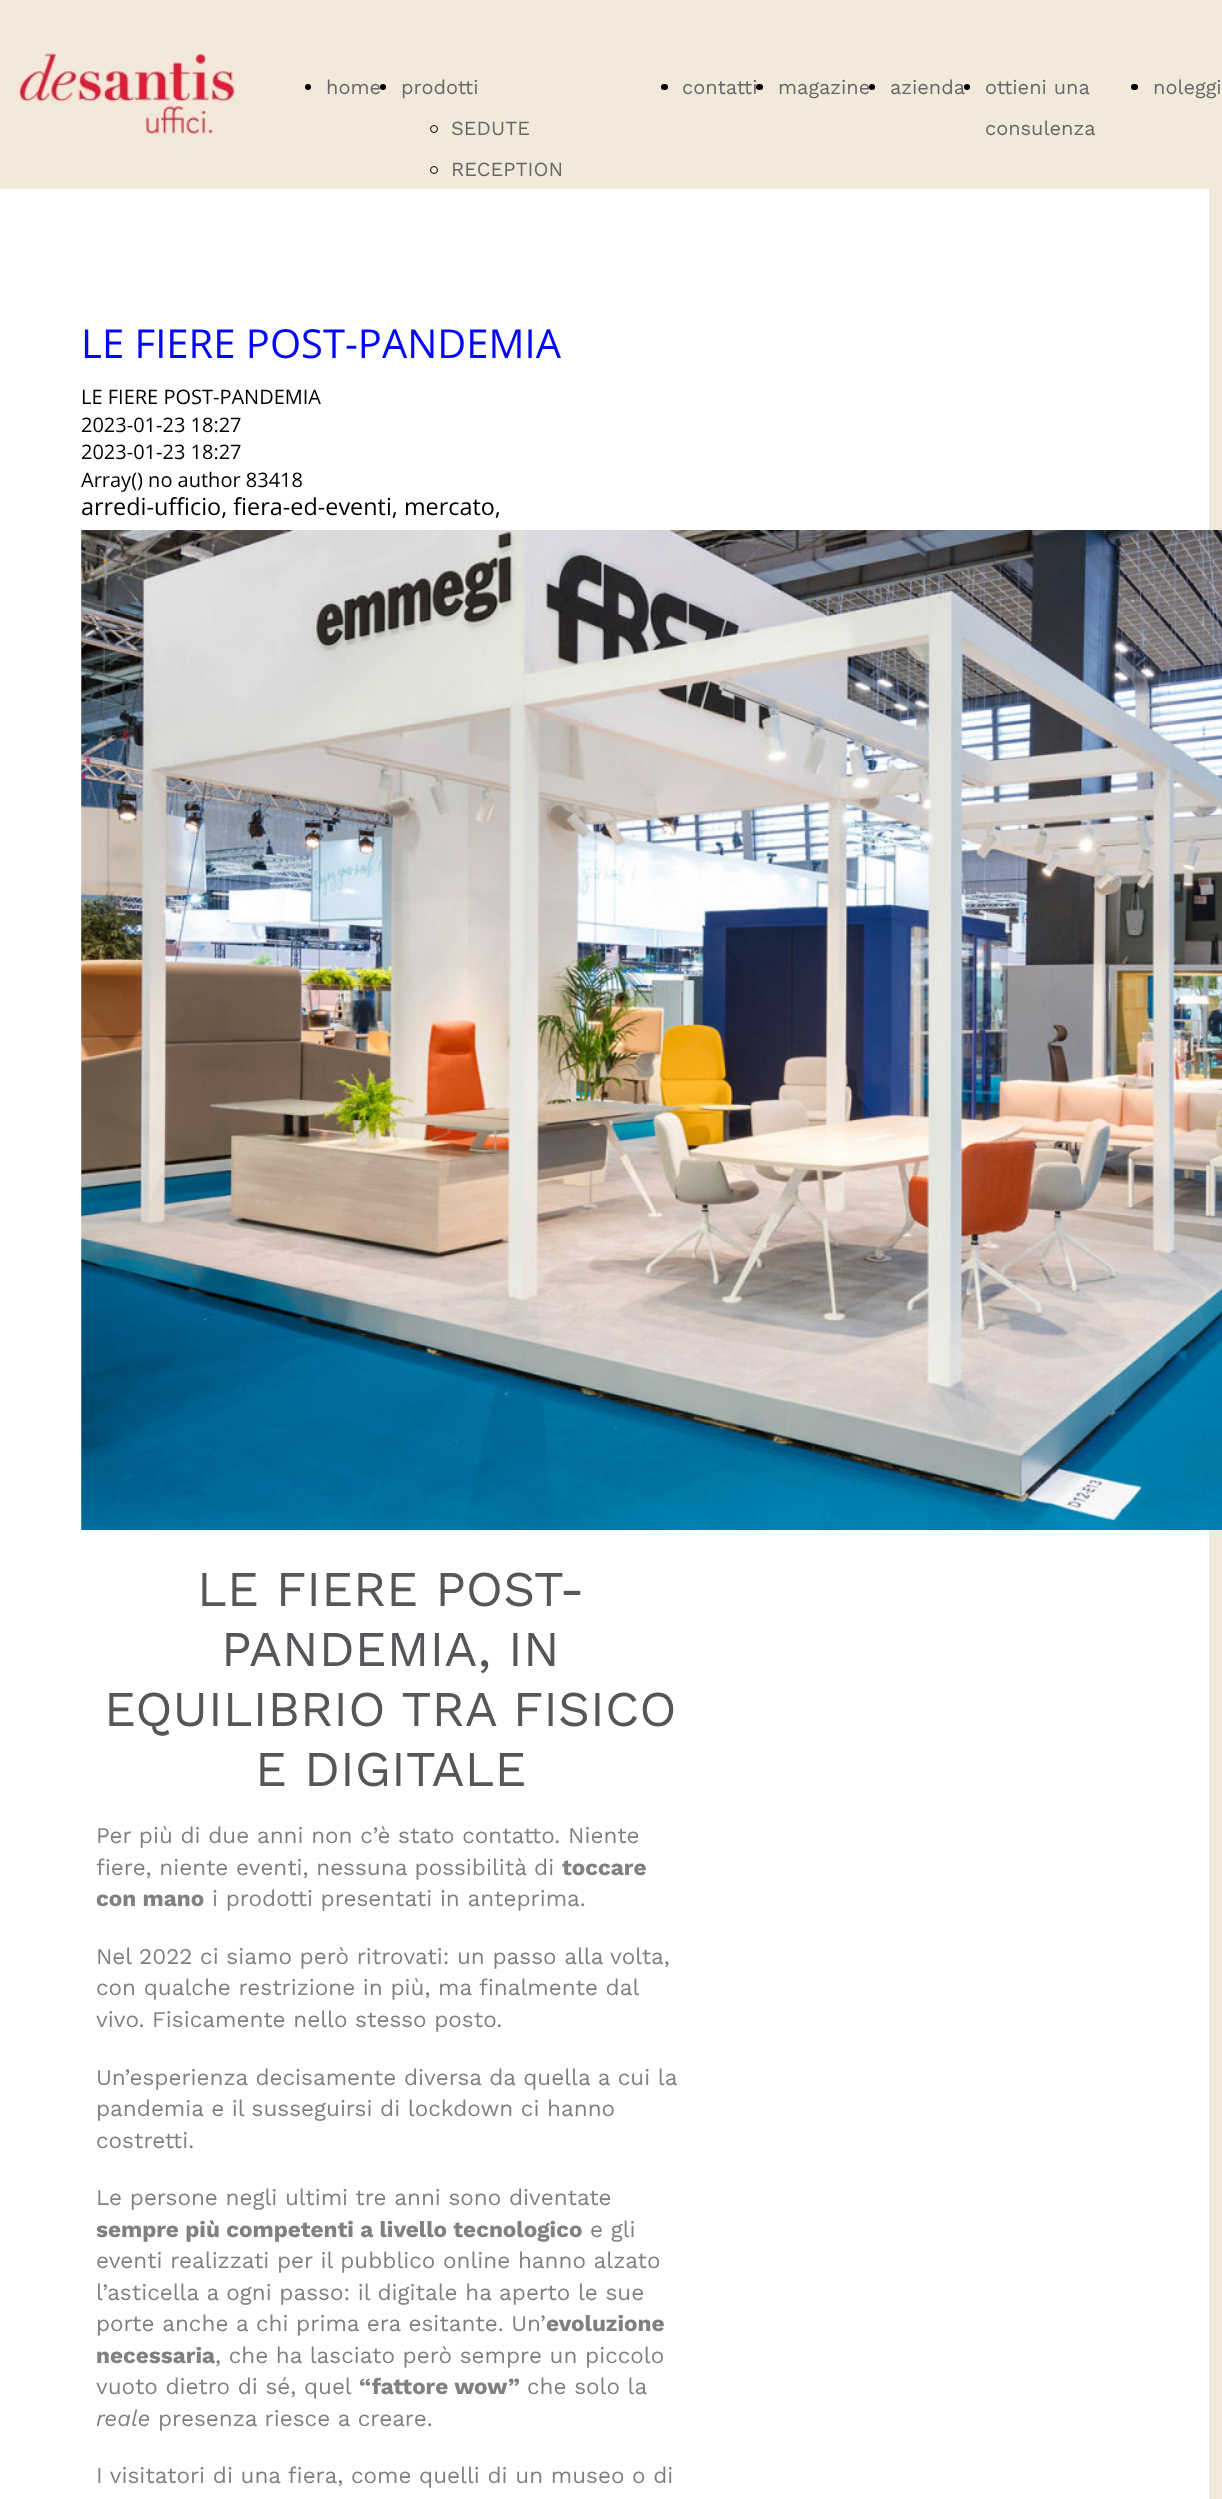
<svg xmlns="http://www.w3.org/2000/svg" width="1222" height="2499">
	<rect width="100%" height="100%" fill="#F2E9DB" />
	<image x="1" y="51" width="241" height="98" href="assets/img1.png" />
	<circle cx="308" cy="87" r="3" fill="#000000" />
	<text x="326" y="94" font-family="Work Sans" font-size="20" fill="#696869">home</text>
	<circle cx="383" cy="87" r="3" fill="#000000" />
	<text x="401" y="94" font-family="Work Sans" font-size="20" fill="#696869">prodotti</text>
	<circle cx="434" cy="129" r="3.5" fill="none" stroke="#000000" />
	<text x="451" y="135" font-family="Work Sans" font-size="20" fill="#696869">SEDUTE</text>
	<circle cx="434" cy="170" r="3.5" fill="none" stroke="#000000" />
	<text x="451" y="176" font-family="Work Sans" font-size="20" fill="#696869">RECEPTION</text>
	<rect x="661" y="84" width="7" height="6" rx="3" fill="#000000" />
	<text x="682" y="94" font-family="Work Sans" font-size="20" fill="#696869">contatti</text>
	<rect x="756" y="84" width="7" height="6" rx="3" fill="#000000" />
	<text x="778" y="94" font-family="Work Sans" font-size="20" fill="#696869">magazine</text>
	<circle cx="872" cy="87" r="3" fill="#000000" />
	<text x="890" y="94" font-family="Work Sans" font-size="20" fill="#696869">azienda</text>
	<circle cx="967" cy="87" r="3" fill="#000000" />
	<g font-family="Work Sans" font-size="20" fill="#696869">
		<text x="985" y="94">ottieni una</text>
		<text x="985" y="135">consulenza</text>
	</g>
	<rect x="1131" y="84" width="7" height="6" rx="3" fill="#000000" />
	<text x="1153" y="94" font-family="Work Sans" font-size="20" fill="#696869">noleggi</text>
	<rect x="0" y="189" width="1209" height="2310" fill="#FFFFFF" />
	<text x="81" y="358" font-family="Open Sans" font-size="40" fill="#0207F7">LE FIERE POST-PANDEMIA</text>
	<g font-family="Open Sans" font-size="20" fill="#000000">
		<text x="81" y="404">LE FIERE POST-PANDEMIA</text>
		<text x="81" y="432">2023-01-23 18:27</text>
		<text x="81" y="459">2023-01-23 18:27</text>
		<text x="81" y="487">Array() no author 83418</text>
	</g>
	<text x="81" y="515" font-family="Open Sans" font-size="23.4" fill="#000000">arredi-ufficio, fiera-ed-eventi, mercato,</text>
	<image x="81" y="530" width="1141" height="1000" href="assets/img2.png" />
	<g font-family="Work Sans" font-size="50" fill="#555659">
		<text x="197" y="1606">LE FIERE POST-</text>
		<text x="221" y="1666">PANDEMIA, IN</text>
		<text x="104" y="1726">EQUILIBRIO TRA FISICO</text>
		<text x="255" y="1786">E DIGITALE</text>
	</g>
	<g font-family="Work Sans" font-size="22.5" fill="#808083">
		<text x="96" y="1843">Per più di due anni non c’è stato contatto. Niente</text>
		<text x="96" y="1875">fiere, niente eventi, nessuna possibilità di</text>
	</g>
	<g font-family="Work Sans" font-size="22.5" font-weight="700" fill="#808083">
		<text x="562" y="1875">toccare</text>
		<text x="96" y="1906">con mano</text>
	</g>
	<g font-family="Work Sans" font-size="22.5" fill="#808083">
		<text x="212" y="1906">i prodotti presentati in anteprima.</text>
		<text x="96" y="1964">Nel 2022 ci siamo però ritrovati: un passo alla volta,</text>
		<text x="96" y="1995">con qualche restrizione in più, ma finalmente dal</text>
		<text x="96" y="2027">vivo. Fisicamente nello stesso posto.</text>
		<text x="96" y="2085">Un’esperienza decisamente diversa da quella a cui la</text>
		<text x="96" y="2116">pandemia e il susseguirsi di lockdown ci hanno</text>
		<text x="96" y="2148">costretti.</text>
		<text x="96" y="2205">Le persone negli ultimi tre anni sono diventate</text>
	</g>
	<text x="96" y="2237" font-family="Work Sans" font-size="22.5" font-weight="700" fill="#808083">sempre più competenti a livello tecnologico</text>
	<g font-family="Work Sans" font-size="22.5" fill="#808083">
		<text x="590" y="2237">e gli</text>
		<text x="96" y="2268">eventi realizzati per il pubblico online hanno alzato</text>
		<text x="96" y="2300">l’asticella a ogni passo: il digitale ha aperto le sue</text>
		<text x="96" y="2331">porte anche a chi prima era esitante. Un’</text>
	</g>
	<g font-family="Work Sans" font-size="22.5" font-weight="700" fill="#808083">
		<text x="546" y="2331">evoluzione</text>
		<text x="96" y="2363">necessaria</text>
	</g>
	<g font-family="Work Sans" font-size="22.5" fill="#808083">
		<text x="215" y="2363">, che ha lasciato però sempre un piccolo</text>
		<text x="96" y="2394">vuoto dietro di sé, quel</text>
	</g>
	<text x="359" y="2394" font-family="Work Sans" font-size="22.5" font-weight="700" fill="#808083">“fattore wow”</text>
	<text x="527" y="2394" font-family="Work Sans" font-size="22.5" fill="#808083">che solo la</text>
	<text x="96" y="2426" font-family="Work Sans" font-size="22.5" font-style="italic" fill="#808083">reale</text>
	<g font-family="Work Sans" font-size="22.5" fill="#808083">
		<text x="158" y="2426">presenza riesce a creare.</text>
		<text x="96" y="2483">I visitatori di una fiera, come quelli di un museo o di</text>
	</g>
</svg>
